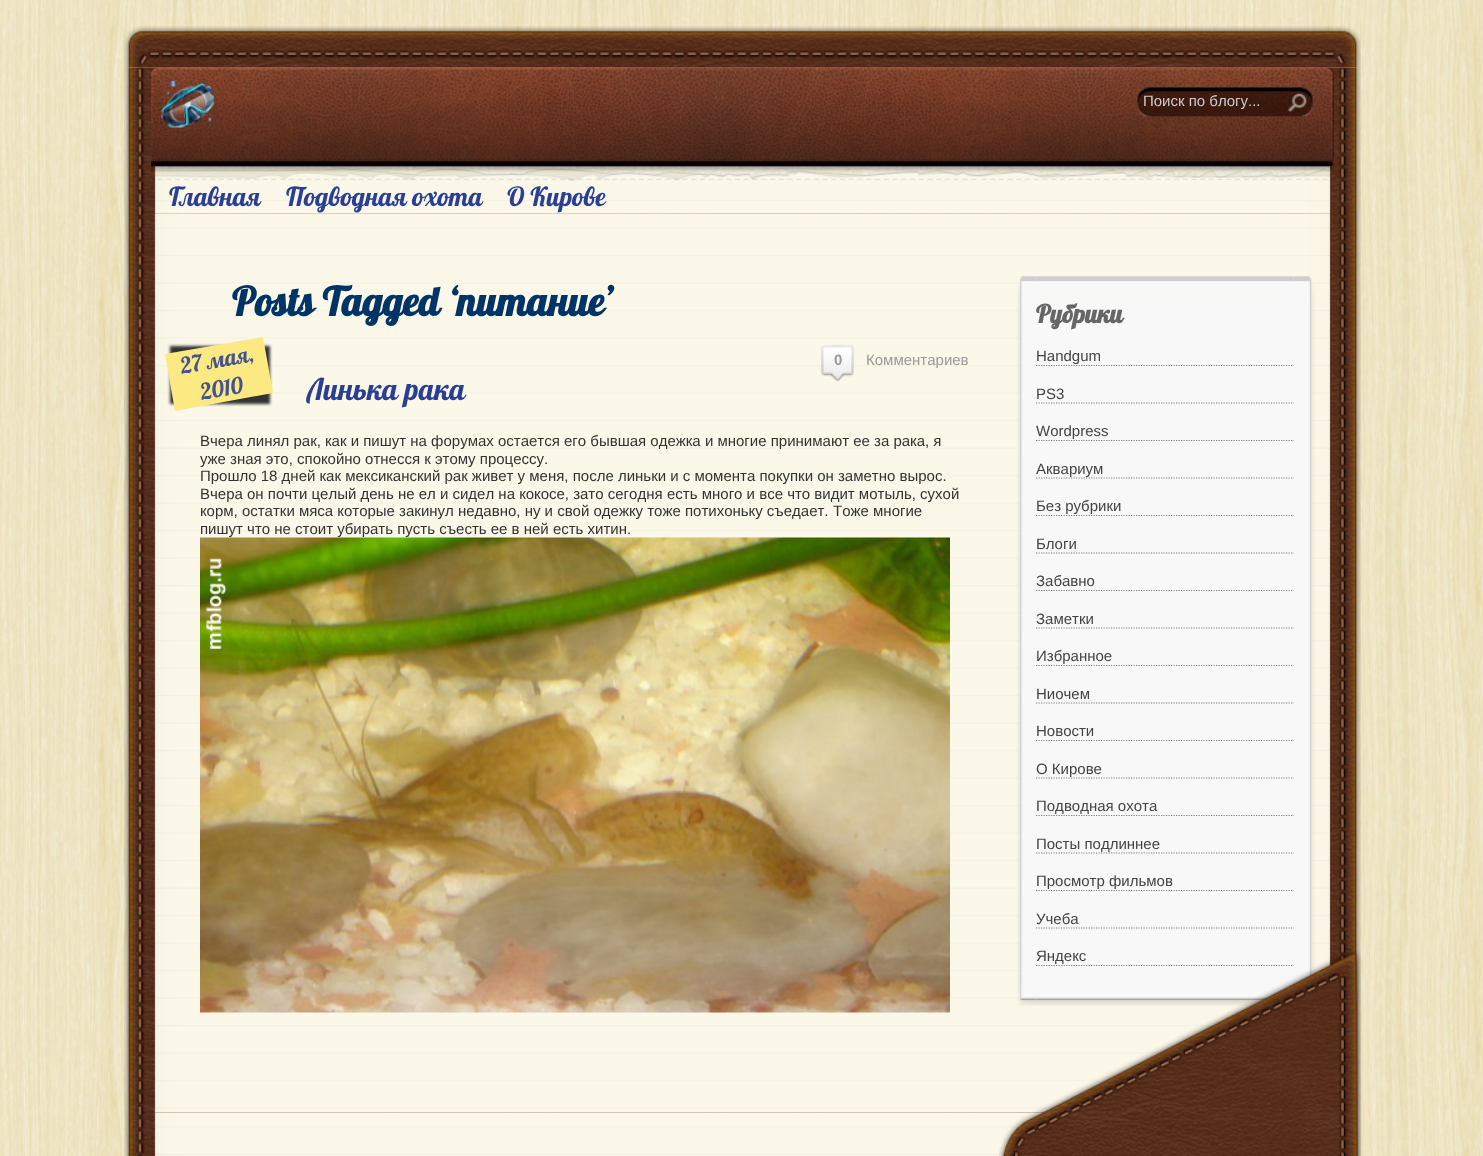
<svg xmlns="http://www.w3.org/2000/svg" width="1483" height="1156">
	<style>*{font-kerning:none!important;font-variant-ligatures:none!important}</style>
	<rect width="100%" height="100%" fill="#FFFFFF" />
	<image x="0" y="0" width="1483" height="1156" href="assets/img1.png" />
	<image x="124" y="26" width="1237" height="42" href="assets/img2.png" />
	<image x="124" y="67" width="1237" height="1089" href="assets/img3.png" />
	<image x="151" y="67" width="1183" height="147" href="assets/img4.png" />
	<image x="161" y="80" width="53" height="48" href="assets/img5.png" />
	<image x="1137" y="87" width="176" height="30" href="assets/img6.png" />
	<text x="1143" y="106" font-family="Liberation Sans" font-size="15" fill="#CCCCCC">Поиск по блогу...</text>
	<g font-family="Lobster" font-size="26.25" fill="#293F94">
		<text x="169" y="206">Главная</text>
		<text x="286" y="206">Подводная охота</text>
		<text x="507" y="206">О Кирове</text>
	</g>
	<image x="154" y="213" width="1177" height="900" href="assets/img7.png" />
	<text x="232" y="316" font-family="Lobster" font-size="40" font-weight="700" fill="#003366">Posts Tagged ‘питание’</text>
	<rect x="170" y="346" width="100" height="58" fill="#333333" filter="blur(1.5px)" />
	<path d="M165 354L263 337L273 393L175 411Z" fill="#FDE981" />
	<g font-family="Lobster" font-size="22.5" fill="#435492">
		<text x="182" y="374" transform="rotate(-10 182 374)">27 мая,</text>
		<text x="202" y="400" transform="rotate(-10 202 400)">2010</text>
	</g>
	<image x="821" y="345" width="19" height="32" href="assets/img8.png" />
	<image x="835" y="345" width="19" height="32" href="assets/img9.png" />
	<image x="831" y="345" width="13" height="37" href="assets/img10.png" />
	<text x="834" y="365" font-family="Liberation Sans" font-size="15" font-weight="700" fill="#999999">0</text>
	<text x="866" y="365" font-family="Liberation Sans" font-size="15" fill="#999999">Комментариев</text>
	<text x="307" y="400" font-family="Lobster" font-size="30" fill="#293F94">Линька рака</text>
	<g font-family="Liberation Sans" font-size="15" fill="#333333">
		<text x="200" y="446">Вчера линял рак, как и пишут на форумах остается его бывшая одежка и многие принимают ее за рака, я</text>
		<text x="200" y="464">уже зная это, спокойно отнесся к этому процессу.</text>
		<text x="200" y="481">Прошло 18 дней как мексиканский рак живет у меня, после линьки и с момента покупки он заметно вырос.</text>
		<text x="200" y="499">Вчера он почти целый день не ел и сидел на кокосе, зато сегодня</text>
		<text x="667" y="499">есть много и все что видит мотыль, сухой</text>
		<text x="200" y="516">корм, остатки мяса которые закинул недавно, ну и свой одежку тоже потихоньку съедает.</text>
		<text x="833" y="516">Тоже многие</text>
		<text x="200" y="534">пишут что не стоит убирать пусть съесть ее в ней есть хитин.</text>
	</g>
	<image x="200" y="537" width="750" height="476" href="assets/img11.png" />
	<image x="1017" y="276" width="20" height="22" href="assets/img12.png" />
	<image x="1293" y="276" width="22" height="22" href="assets/img13.png" />
	<rect x="1036" y="298" width="258" height="687" fill="#F8F8F8" />
	<image x="1036" y="276" width="258" height="22" href="assets/img14.png" />
	<image x="1017" y="297" width="19" height="688" href="assets/img15.png" />
	<text x="1036" y="323" font-family="Lobster" font-size="25" font-weight="700" fill="#666666">Рубрики</text>
	<path d="M1036 365.5H1294" fill="none" stroke="#808080" stroke-width="1.2" stroke-dasharray="1.25 1.25" />
	<text x="1036" y="361" font-family="Liberation Sans" font-size="15" fill="#444444">Handgum</text>
	<path d="M1036 403H1294" fill="none" stroke="#808080" stroke-width="1.2" stroke-dasharray="1.25 1.25" />
	<text x="1036" y="399" font-family="Liberation Sans" font-size="15" fill="#444444">PS3</text>
	<path d="M1036 440.5H1294" fill="none" stroke="#808080" stroke-width="1.2" stroke-dasharray="1.25 1.25" />
	<text x="1036" y="436" font-family="Liberation Sans" font-size="15" fill="#444444">Wordpress</text>
	<path d="M1036 478H1294" fill="none" stroke="#808080" stroke-width="1.2" stroke-dasharray="1.25 1.25" />
	<text x="1036" y="474" font-family="Liberation Sans" font-size="15" fill="#444444">Аквариум</text>
	<path d="M1036 515.5H1294" fill="none" stroke="#808080" stroke-width="1.2" stroke-dasharray="1.25 1.25" />
	<text x="1036" y="511" font-family="Liberation Sans" font-size="15" fill="#444444">Без рубрики</text>
	<path d="M1036 553H1294" fill="none" stroke="#808080" stroke-width="1.2" stroke-dasharray="1.25 1.25" />
	<text x="1036" y="549" font-family="Liberation Sans" font-size="15" fill="#444444">Блоги</text>
	<path d="M1036 590.5H1294" fill="none" stroke="#808080" stroke-width="1.2" stroke-dasharray="1.25 1.25" />
	<text x="1036" y="586" font-family="Liberation Sans" font-size="15" fill="#444444">Забавно</text>
	<path d="M1036 628H1294" fill="none" stroke="#808080" stroke-width="1.2" stroke-dasharray="1.25 1.25" />
	<text x="1036" y="624" font-family="Liberation Sans" font-size="15" fill="#444444">Заметки</text>
	<path d="M1036 665.5H1294" fill="none" stroke="#808080" stroke-width="1.2" stroke-dasharray="1.25 1.25" />
	<text x="1036" y="661" font-family="Liberation Sans" font-size="15" fill="#444444">Избранное</text>
	<path d="M1036 703H1294" fill="none" stroke="#808080" stroke-width="1.2" stroke-dasharray="1.25 1.25" />
	<text x="1036" y="699" font-family="Liberation Sans" font-size="15" fill="#444444">Ниочем</text>
	<path d="M1036 740.5H1294" fill="none" stroke="#808080" stroke-width="1.2" stroke-dasharray="1.25 1.25" />
	<text x="1036" y="736" font-family="Liberation Sans" font-size="15" fill="#444444">Новости</text>
	<path d="M1036 778H1294" fill="none" stroke="#808080" stroke-width="1.2" stroke-dasharray="1.25 1.25" />
	<text x="1036" y="774" font-family="Liberation Sans" font-size="15" fill="#444444">О Кирове</text>
	<path d="M1036 815.5H1294" fill="none" stroke="#808080" stroke-width="1.2" stroke-dasharray="1.25 1.25" />
	<text x="1036" y="811" font-family="Liberation Sans" font-size="15" fill="#444444">Подводная охота</text>
	<path d="M1036 853H1294" fill="none" stroke="#808080" stroke-width="1.2" stroke-dasharray="1.25 1.25" />
	<text x="1036" y="849" font-family="Liberation Sans" font-size="15" fill="#444444">Посты подлиннее</text>
	<path d="M1036 890.5H1294" fill="none" stroke="#808080" stroke-width="1.2" stroke-dasharray="1.25 1.25" />
	<text x="1036" y="886" font-family="Liberation Sans" font-size="15" fill="#444444">Просмотр фильмов</text>
	<path d="M1036 928H1294" fill="none" stroke="#808080" stroke-width="1.2" stroke-dasharray="1.25 1.25" />
	<text x="1036" y="924" font-family="Liberation Sans" font-size="15" fill="#444444">Учеба</text>
	<path d="M1036 965.5H1294" fill="none" stroke="#808080" stroke-width="1.2" stroke-dasharray="1.25 1.25" />
	<text x="1036" y="961" font-family="Liberation Sans" font-size="15" fill="#444444">Яндекс</text>
	<image x="1293" y="297" width="22" height="688" href="assets/img16.png" />
	<image x="1036" y="985" width="258" height="21" href="assets/img17.png" />
	<image x="1017" y="985" width="20" height="21" href="assets/img18.png" />
	<image x="1293" y="985" width="1" height="1" href="assets/img19.png" />
	<image x="154" y="1112" width="892" height="44" href="assets/img20.png" />
	<image x="999" y="949" width="363" height="207" href="assets/img21.png" />
</svg>
